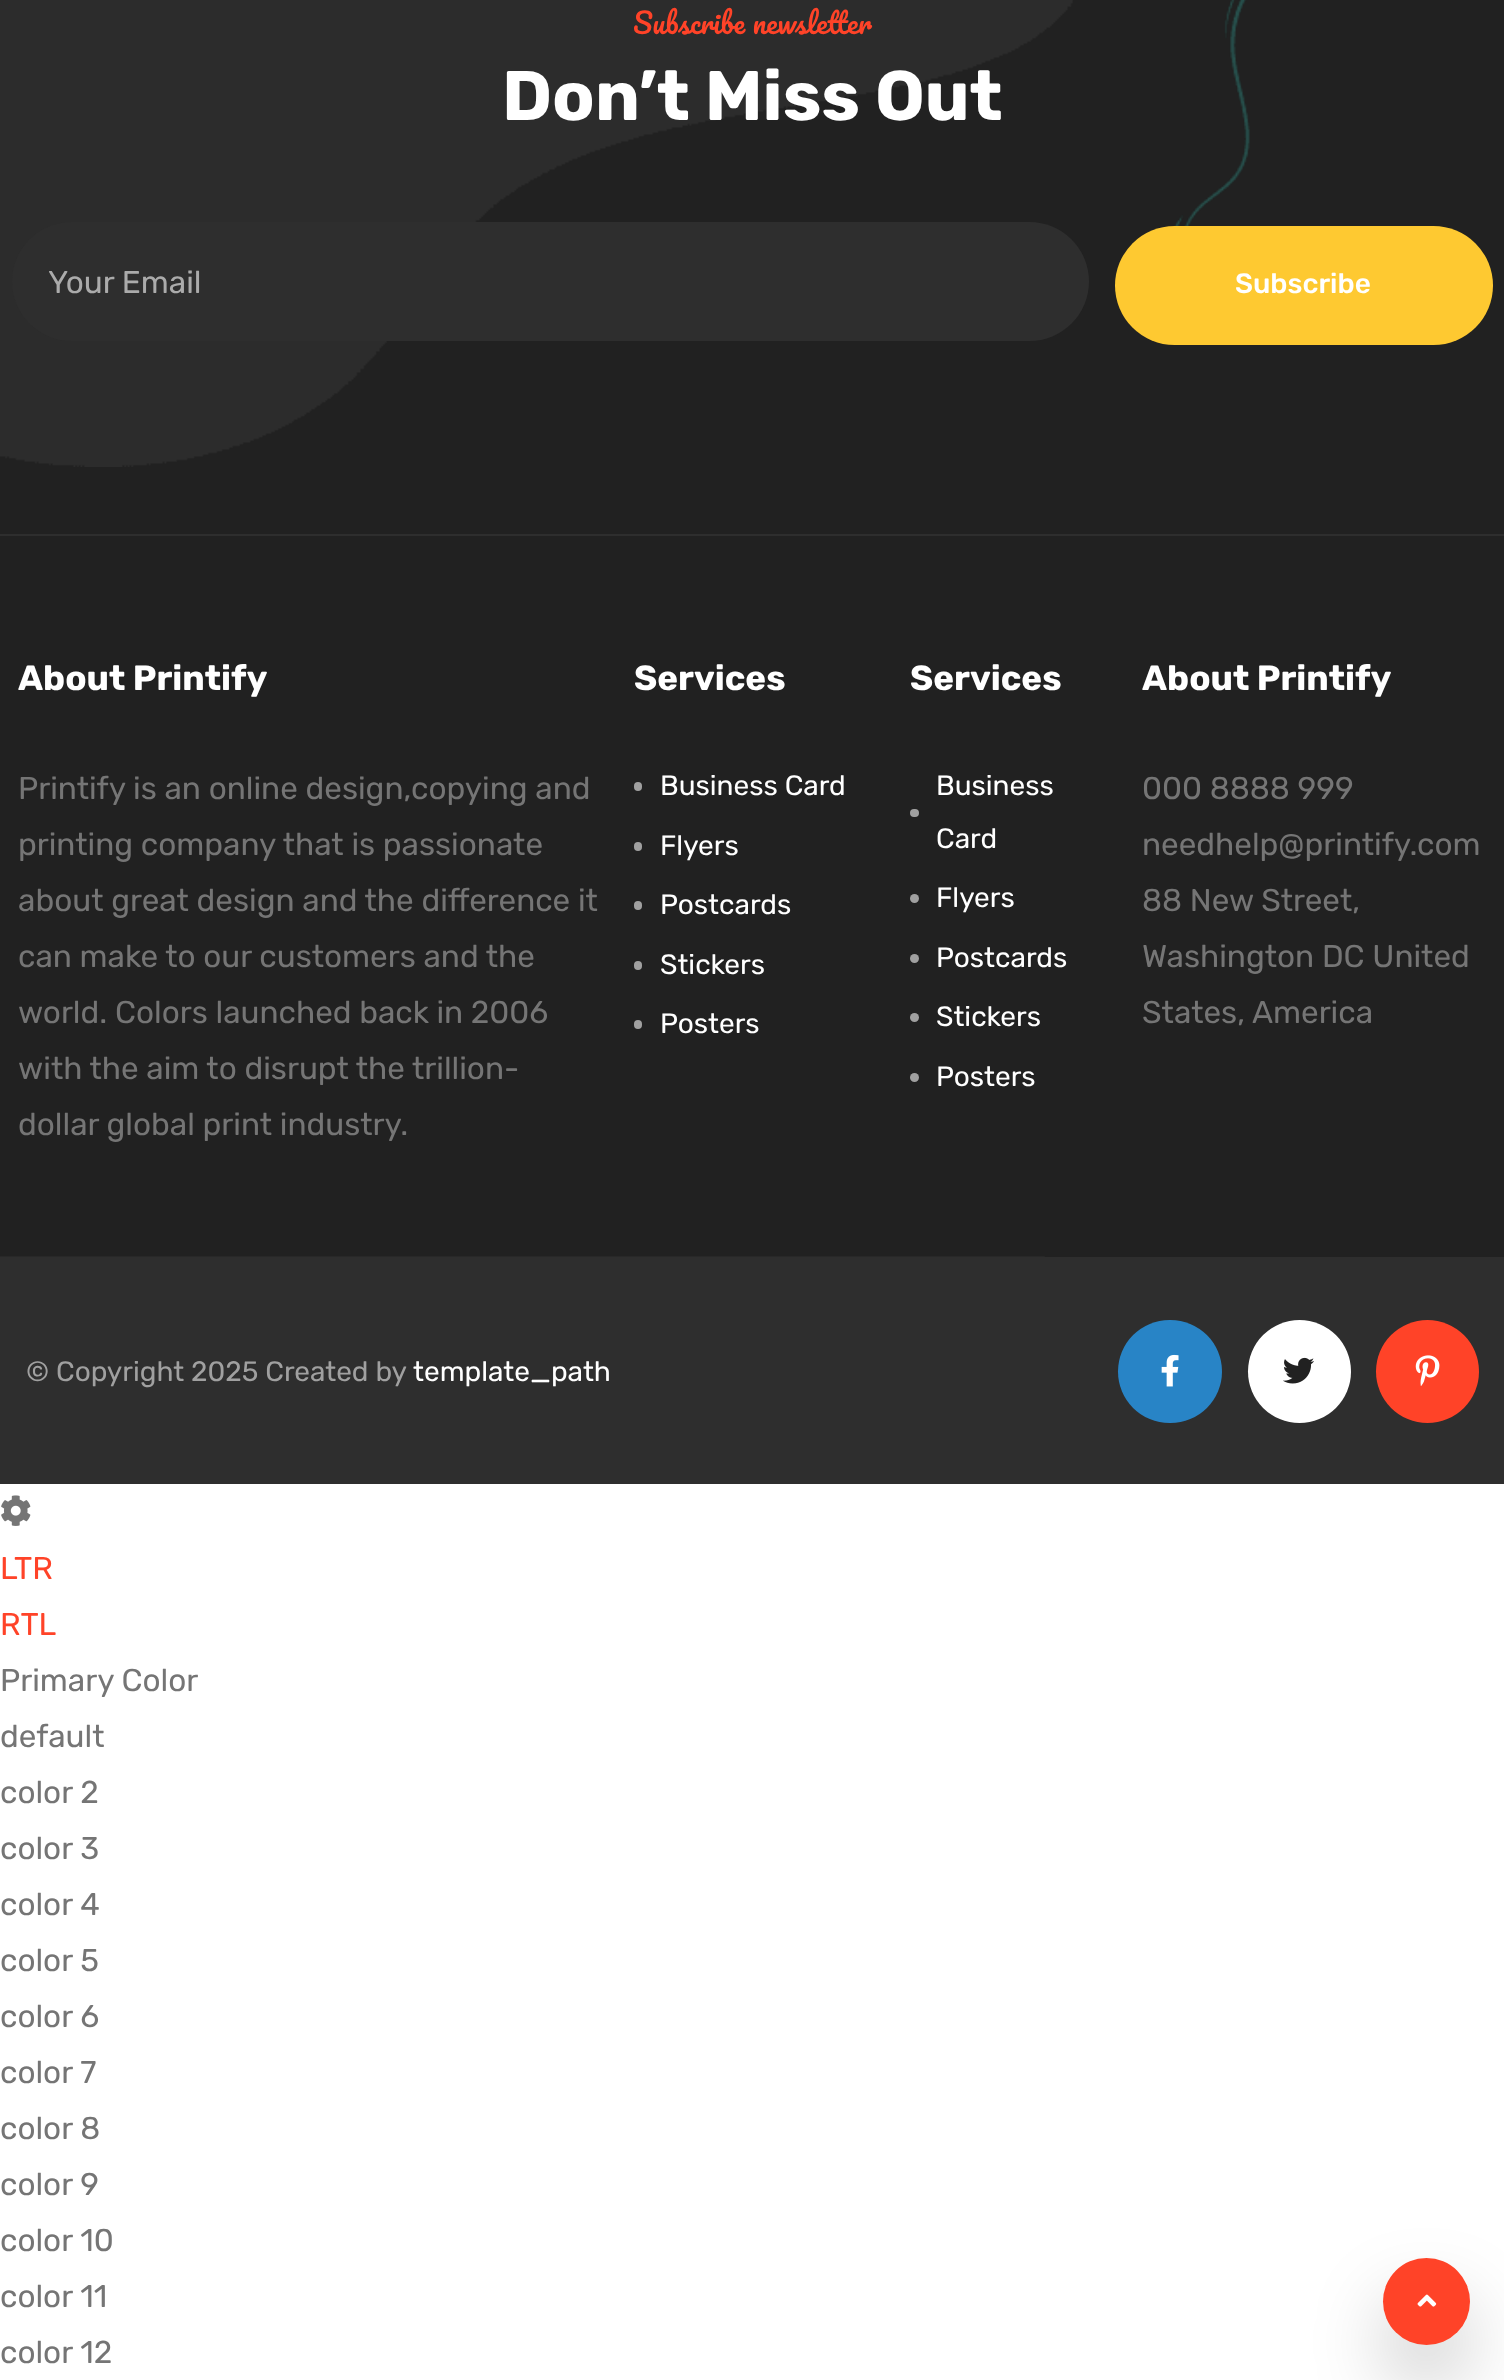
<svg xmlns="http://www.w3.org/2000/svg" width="1504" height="2380">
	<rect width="100%" height="100%" fill="#FFFFFF" />
	<rect x="0" y="0" width="1504" height="534" fill="#212121" />
	<image x="1174" y="0" width="76" height="226" href="assets/img1.png" />
	<image x="0" y="0" width="1073" height="467" href="assets/img2.png" />
	<rect x="0" y="534" width="1504" height="2" fill="#2E2E2E" />
	<text x="633" y="34" font-family="Pacifico" font-size="28" fill="#FF4328">Subscribe newsletter</text>
	<text x="502" y="120" font-family="Rubik" font-size="70" font-weight="700" fill="#FFFFFF">Don’t Miss Out</text>
	<rect x="12" y="222" width="1077" height="119" rx="59.5" fill="#2E2E2E" />
	<text x="48" y="293" font-family="Rubik" font-size="31.5" fill="#ABABAB">Your Email</text>
	<rect x="1115" y="226" width="378" height="119" rx="59.5" fill="#FEC931" />
	<text x="1235" y="293" font-family="Rubik" font-size="28" font-weight="500" fill="#FFFFFF">Subscribe</text>
	<rect x="0" y="536" width="1504" height="721" fill="#212121" />
	<text x="18" y="690" font-family="Rubik" font-size="35" font-weight="700" fill="#FFFFFF">About Printify</text>
	<g font-family="Rubik" font-size="31.5" fill="#757575">
		<text x="18" y="799">Printify is an online design,copying and</text>
		<text x="18" y="855">printing company that is passionate</text>
		<text x="18" y="911">about great design and the difference it</text>
		<text x="18" y="967">can make to our customers and the</text>
		<text x="18" y="1023">world. Colors launched back in 2006</text>
		<text x="18" y="1079">with the aim to disrupt the trillion-</text>
		<text x="18" y="1135">dollar global print industry.</text>
	</g>
	<text x="634" y="690" font-family="Rubik" font-size="35" font-weight="700" fill="#FFFFFF">Services</text>
	<rect x="634" y="782" width="8" height="9" rx="4" fill="#A0A0A0" />
	<text x="660" y="795" font-family="Rubik" font-size="28" fill="#FFFFFF">Business Card</text>
	<rect x="634" y="842" width="8" height="9" rx="4" fill="#A0A0A0" />
	<text x="660" y="855" font-family="Rubik" font-size="28" fill="#FFFFFF">Flyers</text>
	<rect x="634" y="901" width="8" height="9" rx="4" fill="#A0A0A0" />
	<text x="660" y="914" font-family="Rubik" font-size="28" fill="#FFFFFF">Postcards</text>
	<rect x="634" y="961" width="8" height="9" rx="4" fill="#A0A0A0" />
	<text x="660" y="974" font-family="Rubik" font-size="28" fill="#FFFFFF">Stickers</text>
	<rect x="634" y="1020" width="8" height="9" rx="4" fill="#A0A0A0" />
	<text x="660" y="1033" font-family="Rubik" font-size="28" fill="#FFFFFF">Posters</text>
	<text x="910" y="690" font-family="Rubik" font-size="35" font-weight="700" fill="#FFFFFF">Services</text>
	<text x="936" y="795" font-family="Rubik" font-size="28" fill="#FFFFFF">Business</text>
	<rect x="910" y="809" width="9" height="8" rx="4" fill="#A0A0A0" />
	<text x="936" y="848" font-family="Rubik" font-size="28" fill="#FFFFFF">Card</text>
	<circle cx="914.5" cy="898.5" r="4.5" fill="#A0A0A0" />
	<text x="936" y="907" font-family="Rubik" font-size="28" fill="#FFFFFF">Flyers</text>
	<circle cx="914.5" cy="958.5" r="4.5" fill="#A0A0A0" />
	<text x="936" y="967" font-family="Rubik" font-size="28" fill="#FFFFFF">Postcards</text>
	<circle cx="914.5" cy="1017.5" r="4.5" fill="#A0A0A0" />
	<text x="936" y="1026" font-family="Rubik" font-size="28" fill="#FFFFFF">Stickers</text>
	<circle cx="914.5" cy="1077.5" r="4.5" fill="#A0A0A0" />
	<text x="936" y="1086" font-family="Rubik" font-size="28" fill="#FFFFFF">Posters</text>
	<text x="1142" y="690" font-family="Rubik" font-size="35" font-weight="700" fill="#FFFFFF">About Printify</text>
	<g font-family="Rubik" font-size="31.5" fill="#757575">
		<text x="1142" y="799">000 8888 999</text>
		<text x="1142" y="855">needhelp@printify.com</text>
		<text x="1142" y="911">88 New Street,</text>
		<text x="1142" y="967">Washington DC United</text>
		<text x="1142" y="1023">States, America</text>
	</g>
	<image x="0" y="1256" width="1045" height="1" href="assets/img3.png" />
	<rect x="0" y="1257" width="1504" height="227" fill="#2E2E2E" />
	<text x="26" y="1381" font-family="Rubik" font-size="28" fill="#A0A0A0">© Copyright 2025 Created by</text>
	<text x="413" y="1381" font-family="Rubik" font-size="28" fill="#FFFFFF">template_path</text>
	<rect x="1118" y="1320" width="104" height="103" rx="51.5" fill="#2884C6" />
	<image x="1161" y="1354" width="18" height="33" href="assets/img4.png" />
	<circle cx="1299.5" cy="1371.5" r="51.5" fill="#FFFFFF" />
	<image x="1283" y="1357" width="31" height="27" href="assets/img5.png" />
	<circle cx="1427.5" cy="1371.5" r="51.5" fill="#FF4328" />
	<image x="1415" y="1355" width="25" height="31" href="assets/img6.png" />
	<rect x="1383" y="2298" width="87" height="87" rx="43.5" fill="#000000" fill-opacity="0.2" filter="blur(37px)" />
	<circle cx="1426.5" cy="2301.5" r="43.5" fill="#FF4328" />
	<image x="1417" y="2294" width="20" height="13" href="assets/img7.png" />
	<image x="1" y="1495" width="30" height="31" href="assets/img8.png" />
	<g font-family="Rubik" font-size="31.5" fill="#FF4328">
		<text x="0" y="1579">LTR</text>
		<text x="0" y="1635">RTL</text>
	</g>
	<g font-family="Rubik" font-size="31.5" fill="#757575">
		<text x="0" y="1691">Primary Color</text>
		<text x="0" y="1747">default</text>
		<text x="0" y="1803">color 2</text>
		<text x="0" y="1859">color 3</text>
		<text x="0" y="1915">color 4</text>
		<text x="0" y="1971">color 5</text>
		<text x="0" y="2027">color 6</text>
		<text x="0" y="2083">color 7</text>
		<text x="0" y="2139">color 8</text>
		<text x="0" y="2195">color 9</text>
		<text x="0" y="2251">color 10</text>
		<text x="0" y="2307">color 11</text>
		<text x="0" y="2363">color 12</text>
	</g>
</svg>
